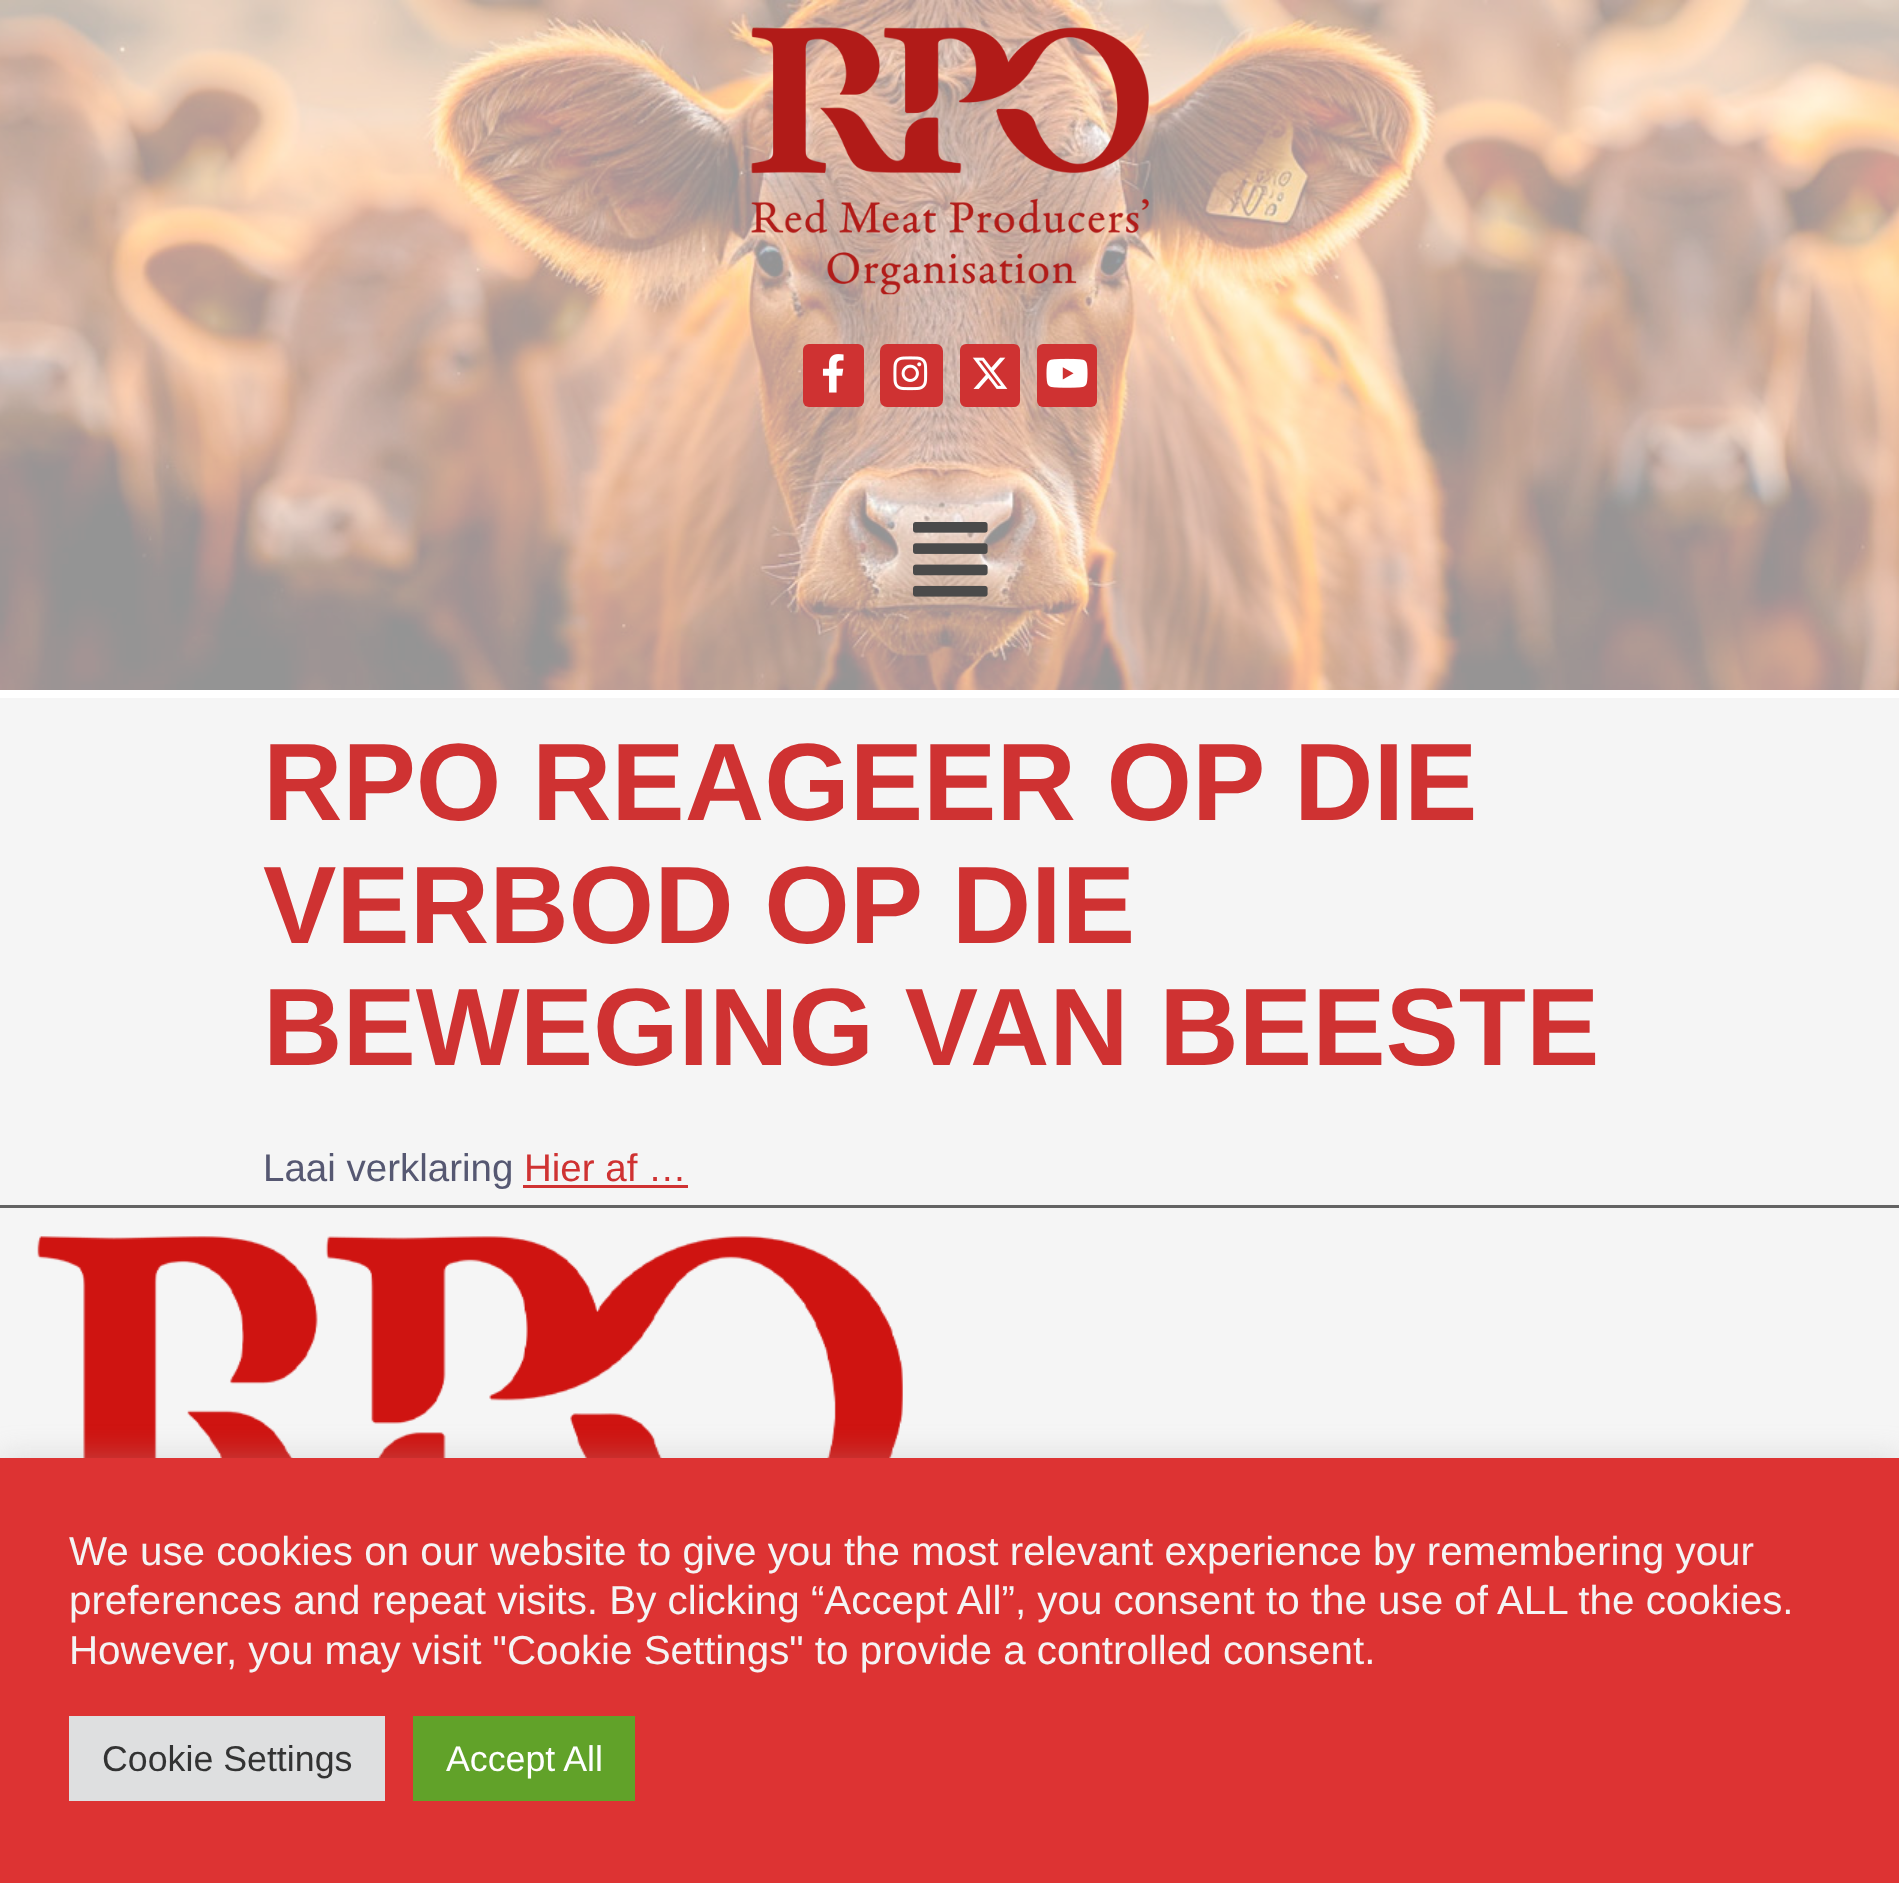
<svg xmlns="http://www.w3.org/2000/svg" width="1899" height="1883">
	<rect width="100%" height="100%" fill="#F5F5F5" />
	<image x="0" y="0" width="1899" height="690" href="assets/img1.png" />
	<rect x="0" y="690" width="1899" height="8" fill="#FFFFFF" />
	<image x="751" y="27" width="398" height="268" href="assets/img2.png" />
	<rect x="803" y="344" width="61" height="63" rx="6" fill="#CF3232" />
	<image x="822" y="354" width="22" height="39" href="assets/img3.png" />
	<rect x="880" y="344" width="63" height="63" rx="7" fill="#CF3232" />
	<image x="893" y="356" width="35" height="35" href="assets/img4.png" />
	<rect x="960" y="344" width="60" height="63" rx="6" fill="#CF3232" />
	<image x="972" y="357" width="36" height="32" href="assets/img5.png" />
	<rect x="1037" y="344" width="60" height="63" rx="6" fill="#CF3232" />
	<image x="1046" y="358" width="42" height="30" href="assets/img6.png" />
	<image x="913" y="522" width="75" height="75" href="assets/img7.png" />
	<g font-family="Liberation Sans" font-size="110" font-weight="700" fill="#CF3232">
		<text x="263" y="820">RPO REAGEER OP DIE</text>
		<text x="263" y="943">VERBOD OP DIE</text>
		<text x="263" y="1065">BEWEGING VAN BEESTE</text>
	</g>
	<text x="263" y="1181" font-family="Liberation Sans" font-size="38.5" fill="#565872">Laai verklaring</text>
	<text x="524" y="1181" font-family="Liberation Sans" font-size="38.5" fill="#CF3232">Hier af …</text>
	<rect x="523" y="1185" width="165" height="3" fill="#CF3232" />
	<rect x="0" y="1205" width="1899" height="3" fill="#636363" />
	<image x="37" y="1236" width="866" height="222" href="assets/img8.png" />
	<rect x="0" y="1455" width="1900" height="426" fill="#ACABAB" fill-opacity="0.3" filter="blur(14px)" />
	<rect x="0" y="1458" width="1899" height="425" fill="#DD3333" />
	<g font-family="Liberation Sans" font-size="40.35" fill="#F4F4F4">
		<text x="69" y="1565">We use cookies on our website to give you the most relevant experience by remembering your</text>
		<text x="69" y="1614">preferences and repeat visits. By clicking “Accept All”, you consent to the use of ALL the cookies.</text>
		<text x="69" y="1664">However, you may visit "Cookie Settings" to provide a controlled consent.</text>
	</g>
	<rect x="69" y="1716" width="316" height="85" fill="#DEDFE0" />
	<text x="102" y="1771" font-family="Liberation Sans" font-size="35.75" fill="#333333">Cookie Settings</text>
	<rect x="413" y="1716" width="222" height="85" fill="#61A229" />
	<text x="446" y="1771" font-family="Liberation Sans" font-size="35.75" fill="#FFFFFF">Accept All</text>
</svg>
